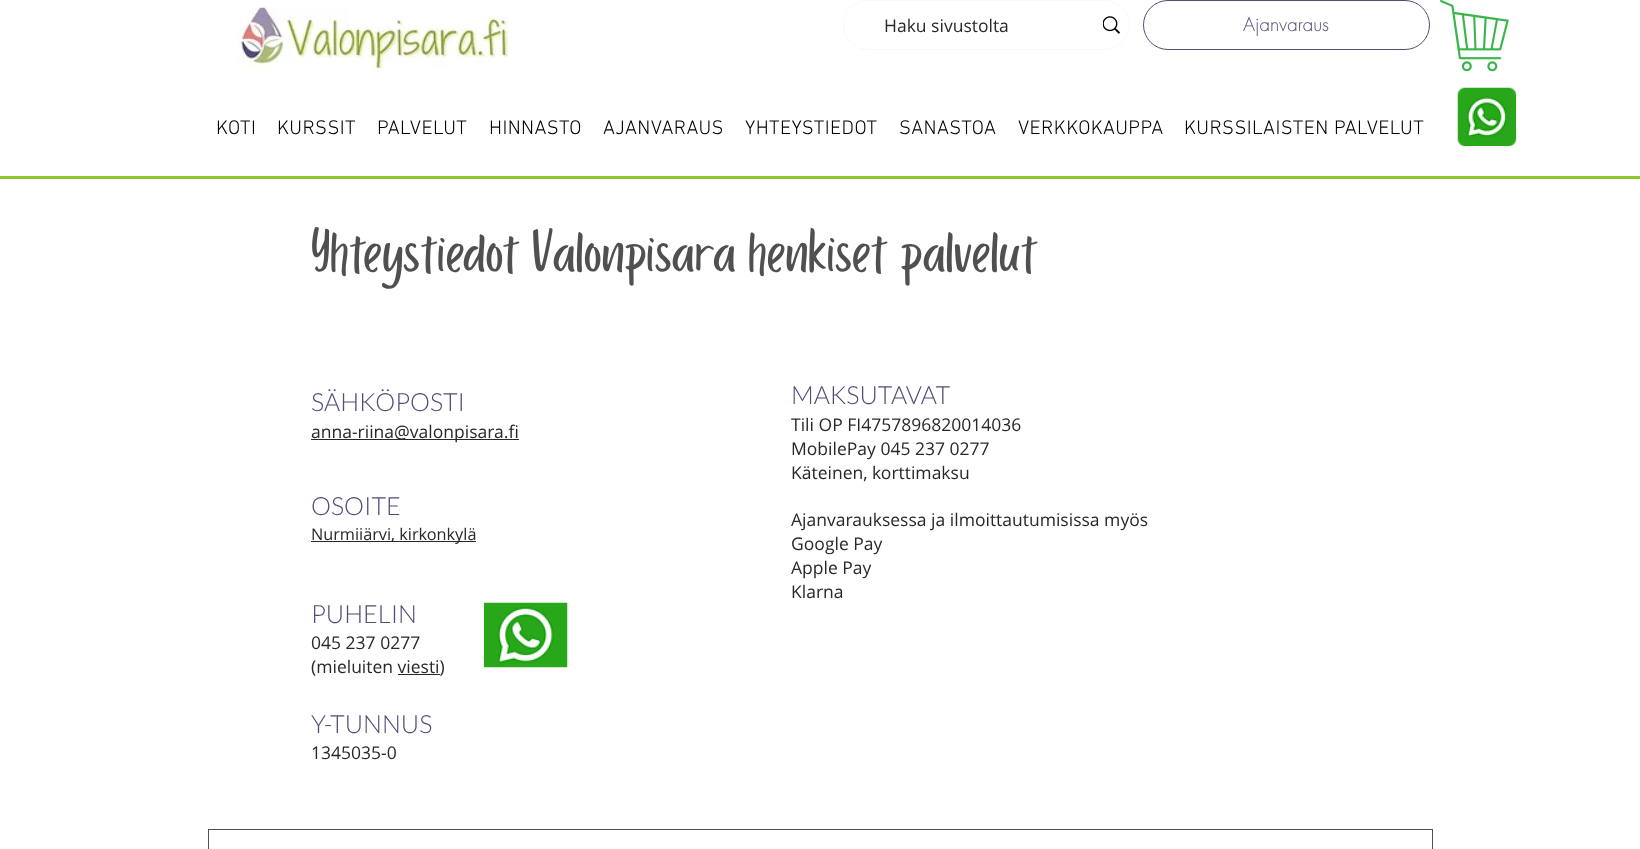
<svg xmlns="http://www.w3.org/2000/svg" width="1640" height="849">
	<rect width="100%" height="100%" fill="#FFFFFF" />
	<image x="237" y="7" width="272" height="66" href="assets/img1.png" />
	<rect x="843.5" y="0.5" width="286" height="49" rx="24.5" fill="none" stroke="#F9F9F9" />
	<text x="884" y="32" font-family="Open Sans" font-size="17.5" fill="#282828">Haku sivustolta</text>
	<image x="1103" y="16" width="17" height="18" href="assets/img2.png" />
	<rect x="1143.5" y="0.5" width="286" height="49" rx="24.5" fill="none" stroke="#554B76" />
	<text x="1243" y="31" font-family="futura" font-size="18.75" font-weight="300" fill="#554B76">Ajanvaraus</text>
	<image x="1440" y="0" width="69" height="72" href="assets/img3.png" />
	<g font-family="'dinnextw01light'" font-size="20" font-weight="300" letter-spacing="0.4" fill="#000000">
		<text x="216" y="134">KOTI</text>
		<text x="277" y="134">KURSSIT</text>
		<text x="377" y="134">PALVELUT</text>
		<text x="489" y="134">HINNASTO</text>
		<text x="603" y="134">AJANVARAUS</text>
		<text x="745" y="134">YHTEYSTIEDOT</text>
		<text x="899" y="134">SANASTOA</text>
		<text x="1018" y="134">VERKKOKAUPPA</text>
		<text x="1184" y="134">KURSSILAISTEN PALVELUT</text>
	</g>
	<image x="1457" y="87" width="60" height="60" href="assets/img4.png" />
	<rect x="0" y="176" width="1640" height="3" fill="#8EC72C" />
	<text x="311" y="271" font-family="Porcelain" font-size="62.5" fill="#515050">Yhteystiedot Valonpisara henkiset palvelut</text>
	<text x="311" y="411" font-family="Lato" font-size="25" font-weight="300" fill="#554B76">SÄHKÖPOSTI</text>
	<rect x="311" y="439" width="208" height="1" fill="#282828" />
	<text x="311" y="438" font-family="Open Sans" font-size="17.5" fill="#282828">anna-riina@valonpisara.fi</text>
	<text x="791" y="404" font-family="Lato" font-size="25" font-weight="300" fill="#554B76">MAKSUTAVAT</text>
	<g font-family="Open Sans" font-size="17.5" fill="#282828">
		<text x="791" y="431">Tili OP FI4757896820014036</text>
		<text x="791" y="455">MobilePay 045 237 0277</text>
		<text x="791" y="479">Käteinen, korttimaksu</text>
		<text x="791" y="526">Ajanvarauksessa ja ilmoittautumisissa myös</text>
		<text x="791" y="550">Google Pay</text>
		<text x="791" y="574">Apple Pay</text>
		<text x="791" y="598">Klarna</text>
	</g>
	<text x="311" y="515" font-family="Lato" font-size="25" font-weight="300" fill="#554B76">OSOITE</text>
	<rect x="311" y="541" width="165" height="1" fill="#282828" />
	<text x="311" y="540" font-family="Open Sans" font-size="16.25" fill="#282828">Nurmiiärvi, kirkonkylä</text>
	<text x="311" y="623" font-family="Lato" font-size="25" font-weight="300" fill="#554B76">PUHELIN</text>
	<g font-family="Open Sans" font-size="17.5" fill="#282828">
		<text x="311" y="649">045 237 0277</text>
		<text x="311" y="673">(mieluiten viesti)</text>
	</g>
	<rect x="398" y="674" width="42" height="1" fill="#282828" />
	<image x="483" y="602" width="85" height="66" href="assets/img5.png" />
	<text x="311" y="733" font-family="Lato" font-size="25" font-weight="300" fill="#554B76">Y-TUNNUS</text>
	<text x="311" y="759" font-family="Open Sans" font-size="17.5" fill="#282828">1345035-0</text>
	<rect x="208.5" y="829.5" width="1224" height="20" fill="none" stroke="#515050" />
</svg>
